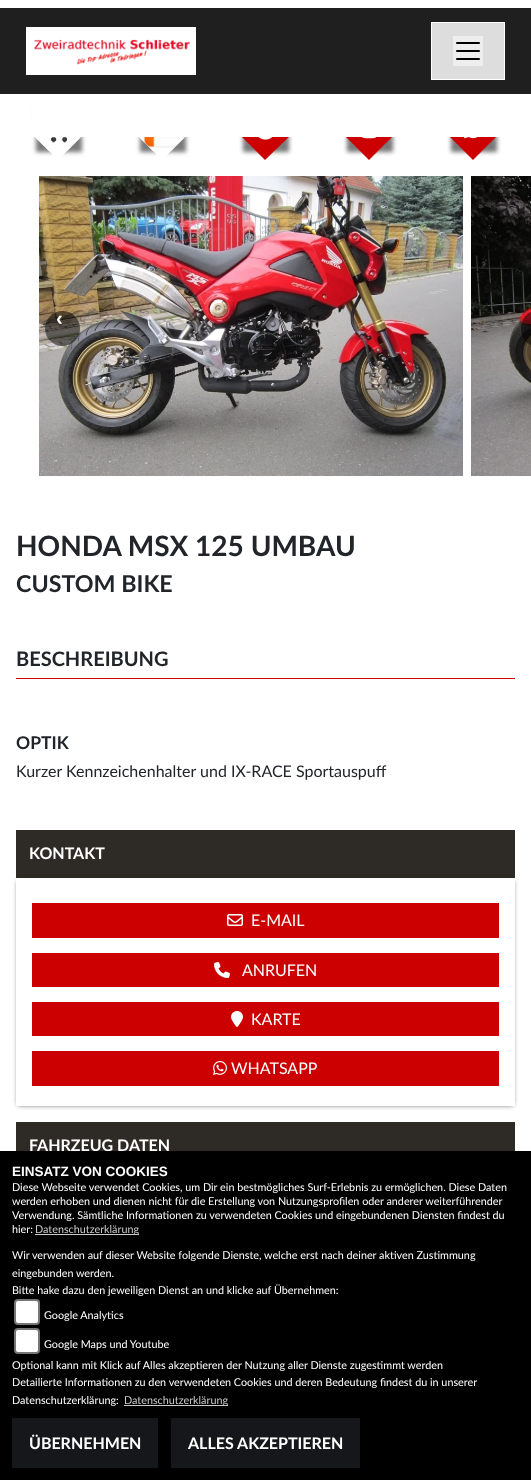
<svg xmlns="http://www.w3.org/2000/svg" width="531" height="1480">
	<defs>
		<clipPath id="clip1"><path d="M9 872H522V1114H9ZM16 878H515V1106H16Z" clip-rule="evenodd" /></clipPath>
	</defs>
	<rect width="100%" height="100%" fill="#FFFFFF" />
	<rect x="0" y="8" width="531" height="86" fill="#1F1F1F" />
	<rect x="26" y="27" width="170" height="48" fill="#FFFFFF" />
	<image x="34" y="39" width="156" height="26" href="assets/img1.png" />
	<rect x="431.5" y="22.5" width="73" height="57" fill="#DDDDDD" stroke="#FFFFFF" />
	<rect x="453" y="36" width="30" height="30" fill="#EEEEEE" />
	<image x="456" y="42" width="24" height="18" href="assets/img2.png" />
	<rect x="36" y="106" width="46" height="46" fill="#1F1F1F" fill-opacity="0.6" filter="blur(2px)" />
	<path d="M58 98L89 129L58 160L27 129Z" fill="#FFFFFF" />
	<path d="M36 120L49 107H67L80 120V138L67 151H49L36 138Z" fill="#FFFFFF" />
	<rect x="140" y="106" width="46" height="46" fill="#1F1F1F" fill-opacity="0.6" filter="blur(2px)" />
	<path d="M162 98L193 129L162 160L131 129Z" fill="#FFFFFF" />
	<path d="M140 120L153 107H171L184 120V138L171 151H153L140 138Z" fill="#FFFFFF" />
	<rect x="243" y="106" width="46" height="46" fill="#1F1F1F" fill-opacity="0.6" filter="blur(2px)" />
	<path d="M265 98L297 129L265 160L234 129Z" fill="#CC0000" />
	<rect x="347" y="106" width="46" height="46" fill="#1F1F1F" fill-opacity="0.6" filter="blur(2px)" />
	<path d="M369 98L400 129L369 160L338 129Z" fill="#CC0000" />
	<rect x="451" y="106" width="46" height="46" fill="#1F1F1F" fill-opacity="0.6" filter="blur(2px)" />
	<path d="M473 98L504 129L473 160L442 129Z" fill="#CC0000" />
	<rect x="32" y="98" width="472" height="39" fill="#FFFFFF" />
	<image x="50" y="137" width="18" height="6" href="assets/img3.png" />
	<image x="143" y="137" width="38" height="11" href="assets/img4.png" />
	<image x="258" y="137" width="15" height="3" href="assets/img5.png" />
	<image x="362" y="137" width="15" height="2" href="assets/img6.png" />
	<image x="464" y="137" width="14" height="2" href="assets/img7.png" />
	<image x="39" y="176" width="424" height="300" href="assets/img8.png" />
	<image x="471" y="176" width="60" height="300" href="assets/img9.png" />
	<rect x="521" y="311" width="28" height="35" rx="17.5" fill="#000000" fill-opacity="0.5" />
	<circle cx="62.5" cy="328.5" r="17.5" fill="#000000" fill-opacity="0.5" />
	<text x="56" y="325" font-family="Liberation Sans" font-size="20" font-weight="700" fill="#FFFFFF">‹</text>
	<text x="16" y="556" font-family="Lato" font-size="28" font-weight="700" fill="#212529">HONDA MSX 125 UMBAU</text>
	<text x="16" y="592" font-family="Lato" font-size="23.25" font-weight="700" fill="#212529">CUSTOM BIKE</text>
	<text x="16" y="666" font-family="Lato" font-size="20" font-weight="700" fill="#212529">BESCHREIBUNG</text>
	<rect x="16" y="678" width="499" height="1" fill="#CC0000" />
	<text x="16" y="749" font-family="Lato" font-size="17.5" font-weight="700" fill="#212529">OPTIK</text>
	<text x="16" y="777" font-family="Lato" font-size="16" fill="#212529">Kurzer Kennzeichenhalter und IX-RACE Sportauspuff</text>
	<rect x="16" y="830" width="499" height="48" fill="#2E2A25" />
	<text x="29" y="859" font-family="Lato" font-size="16" font-weight="700" fill="#FFFFFF">KONTAKT</text>
	<g clip-path="url(#clip1)">
		<rect x="18" y="881" width="495" height="224" fill="#000000" fill-opacity="0.75" filter="blur(2.5px)" />
	</g>
	<rect x="32" y="903" width="467" height="35" fill="#CC0000" />
	<image x="227" y="914" width="16" height="12" href="assets/img10.png" />
	<text x="251" y="926" font-family="Lato" font-size="16" fill="#FFFFFF">E-MAIL</text>
	<rect x="32" y="953" width="467" height="34" fill="#CC0000" />
	<image x="214" y="962" width="16" height="16" href="assets/img11.png" />
	<text x="242" y="976" font-family="Lato" font-size="16" fill="#FFFFFF">ANRUFEN</text>
	<rect x="32" y="1002" width="467" height="34" fill="#CC0000" />
	<image x="231" y="1011" width="12" height="16" href="assets/img12.png" />
	<text x="251" y="1025" font-family="Lato" font-size="16" fill="#FFFFFF">KARTE</text>
	<rect x="32" y="1051" width="467" height="35" fill="#CC0000" />
	<image x="213" y="1061" width="14" height="14" href="assets/img13.png" />
	<text x="231" y="1074" font-family="Lato" font-size="16" fill="#FFFFFF">WHATSAPP</text>
	<rect x="16" y="1122" width="499" height="29" fill="#2E2A25" />
	<text x="29" y="1151" font-family="Lato" font-size="16" font-weight="700" fill="#FFFFFF">FAHRZEUG DATEN</text>
	<rect x="0" y="1151" width="531" height="329" fill="#000000" />
	<text x="12" y="1176" font-family="Liberation Sans" font-size="13.5" font-weight="700" fill="#FFFFFF">EINSATZ VON COOKIES</text>
	<g font-family="Lato" font-size="10.8" fill="#FFFFFF">
		<text x="12" y="1191">Diese Webseite verwendet Cookies, um Dir ein bestmögliches Surf-Erlebnis zu ermöglichen. Diese Daten</text>
		<text x="12" y="1205">werden erhoben und dienen nicht für die Erstellung von Nutzungsprofilen oder anderer weiterführender</text>
		<text x="12" y="1219">Verwendung. Sämtliche Informationen zu verwendeten Cookies und eingebundenen Diensten findest du</text>
		<text x="12" y="1233">hier:</text>
	</g>
	<rect x="35" y="1234" width="104" height="1" fill="#CCCCCC" />
	<text x="35" y="1233" font-family="Lato" font-size="10.8" fill="#CCCCCC">Datenschutzerklärung</text>
	<g font-family="Lato" font-size="10.8" fill="#FFFFFF">
		<text x="12" y="1259">Wir verwenden auf dieser Website folgende Dienste, welche erst nach deiner aktiven Zustimmung</text>
		<text x="12" y="1277">eingebunden werden.</text>
		<text x="12" y="1294">Bitte hake dazu den jeweiligen Dienst an und klicke auf Übernehmen:</text>
	</g>
	<rect x="15" y="1300" width="24" height="24" rx="3" fill="#FFFFFF" stroke="#767676" stroke-width="2" />
	<text x="44" y="1319" font-family="Lato" font-size="10.8" fill="#FFFFFF">Google Analytics</text>
	<rect x="15" y="1329" width="24" height="24" rx="3" fill="#FFFFFF" stroke="#767676" stroke-width="2" />
	<g font-family="Lato" font-size="10.8" fill="#FFFFFF">
		<text x="44" y="1348">Google Maps und Youtube</text>
		<text x="12" y="1369">Optional kann mit Klick auf Alles akzeptieren der Nutzung aller Dienste zugestimmt werden</text>
		<text x="12" y="1386">Detailierte Informationen zu den verwendeten Cookies und deren Bedeutung findest du in unserer</text>
		<text x="12" y="1404">Datenschutzerklärung:</text>
	</g>
	<rect x="124" y="1405" width="104" height="1" fill="#CCCCCC" />
	<text x="124" y="1404" font-family="Lato" font-size="10.8" fill="#CCCCCC">Datenschutzerklärung</text>
	<rect x="12" y="1418" width="146" height="50" fill="#16171A" />
	<text x="29" y="1449" font-family="Lato" font-size="16" font-weight="700" fill="#FFFFFF">ÜBERNEHMEN</text>
	<rect x="171" y="1418" width="189" height="50" fill="#16171A" />
	<text x="188" y="1449" font-family="Lato" font-size="16" font-weight="700" fill="#FFFFFF">ALLES AKZEPTIEREN</text>
</svg>
